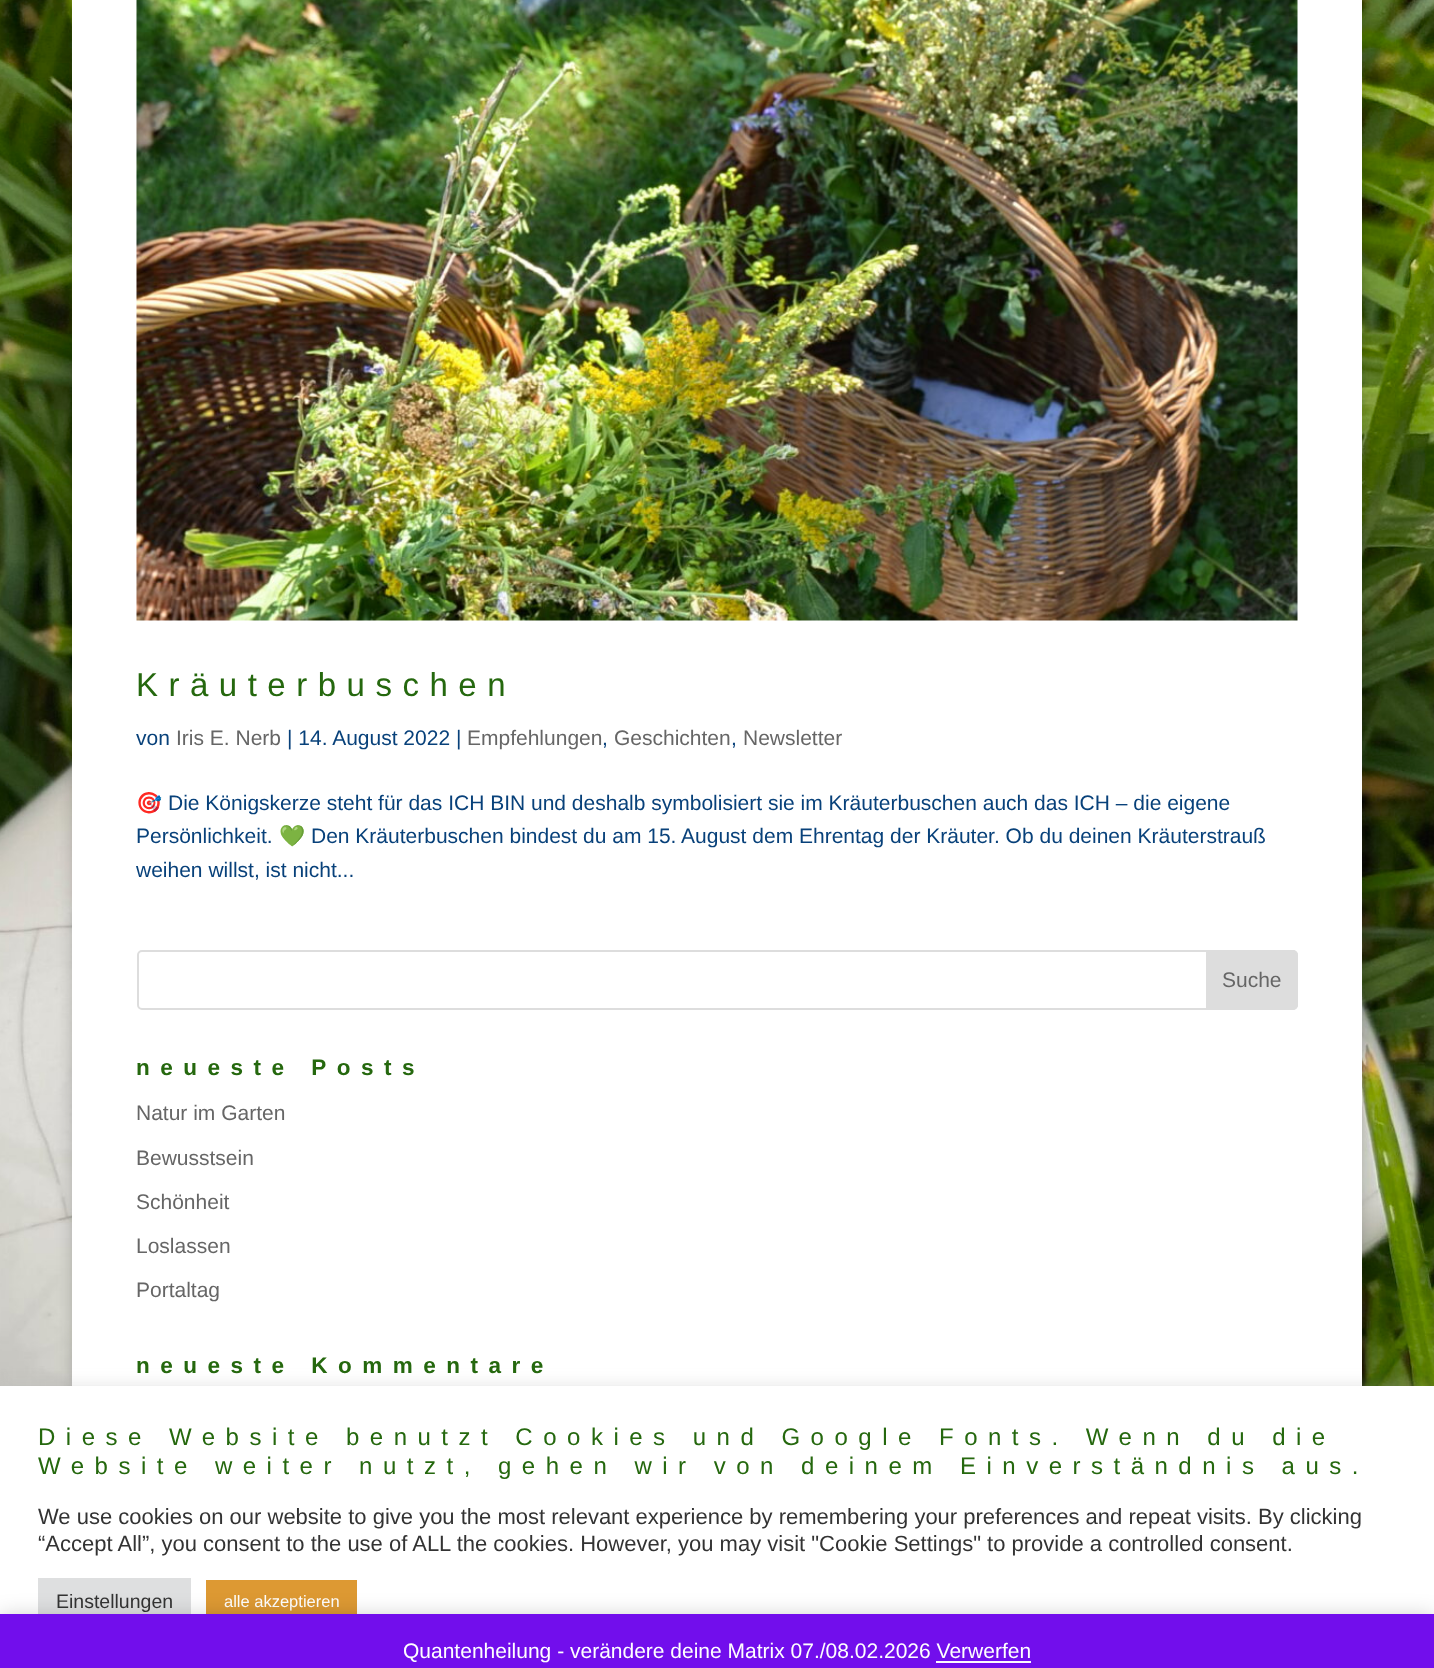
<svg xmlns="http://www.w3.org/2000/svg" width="1434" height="1668">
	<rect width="100%" height="100%" fill="#FFFFFF" />
	<image x="0" y="0" width="1434" height="1386" href="assets/img1.png" />
	<rect x="72" y="-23" width="1290" height="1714" fill="#000000" fill-opacity="0.2" filter="blur(7.5px)" />
	<rect x="72" y="0" width="1290" height="1386" fill="#FFFFFF" />
	<image x="136" y="0" width="1162" height="621" href="assets/img2.png" />
	<text x="136" y="696" font-family="Liberation Sans" font-size="33" letter-spacing="10.5" fill="#25680E">Kräuterbuschen</text>
	<text x="136" y="745" font-family="Liberation Sans" font-size="21" fill="#08417A">von</text>
	<text x="176" y="745" font-family="Liberation Sans" font-size="21" fill="#666666">Iris E. Nerb</text>
	<text x="287" y="745" font-family="Liberation Sans" font-size="21" fill="#08417A">| 14. August 2022 |</text>
	<text x="467" y="745" font-family="Liberation Sans" font-size="21" fill="#666666">Empfehlungen</text>
	<text x="602" y="745" font-family="Liberation Sans" font-size="21" fill="#08417A">,</text>
	<text x="614" y="745" font-family="Liberation Sans" font-size="21" fill="#666666">Geschichten</text>
	<text x="731" y="745" font-family="Liberation Sans" font-size="21" fill="#08417A">,</text>
	<text x="743" y="745" font-family="Liberation Sans" font-size="21" fill="#666666">Newsletter</text>
	<text x="136" y="810" font-family="Noto Color Emoji" font-size="21" fill="#08417A">🎯</text>
	<g font-family="Liberation Sans" font-size="21" fill="#08417A">
		<text x="168" y="810">Die Königskerze steht für das ICH BIN und deshalb symbolisiert sie im Kräuterbuschen auch das ICH – die eigene</text>
		<text x="136" y="843">Persönlichkeit.</text>
	</g>
	<text x="279" y="843" font-family="Noto Color Emoji" font-size="21" fill="#08417A">💚</text>
	<g font-family="Liberation Sans" font-size="21" fill="#08417A">
		<text x="311" y="843">Den Kräuterbuschen bindest du am 15. August dem Ehrentag der Kräuter. Ob du deinen Kräuterstrauß</text>
		<text x="136" y="877">weihen willst, ist nicht...</text>
	</g>
	<rect x="138" y="951" width="1159" height="58" rx="4" fill="none" stroke="#DDDDDD" stroke-width="2" />
	<path d="M1207 951H1293C1295 951 1297 953 1297 955V1005C1297 1007 1295 1009 1293 1009H1207Z" fill="#DDDDDD" stroke="#DDDDDD" stroke-width="2" />
	<text x="1222" y="987" font-family="Liberation Sans" font-size="21" fill="#666666">Suche</text>
	<text x="136" y="1075" font-family="Liberation Sans" font-size="22.5" font-weight="700" letter-spacing="10.5" fill="#25680E">neueste Posts</text>
	<g font-family="Liberation Sans" font-size="21" fill="#666666">
		<text x="136" y="1120">Natur im Garten</text>
		<text x="136" y="1165">Bewusstsein</text>
		<text x="136" y="1209">Schönheit</text>
		<text x="136" y="1253">Loslassen</text>
		<text x="136" y="1297">Portaltag</text>
	</g>
	<text x="136" y="1373" font-family="Liberation Sans" font-size="22.5" font-weight="700" letter-spacing="10.5" fill="#25680E">neueste Kommentare</text>
	<rect x="0" y="1385" width="1434" height="282" fill="#ACABAB" fill-opacity="0.3" filter="blur(7.5px)" />
	<rect x="0" y="1386" width="1434" height="228" fill="#FFFFFF" />
	<g font-family="Liberation Sans" font-size="24" letter-spacing="10.5" fill="#25680E">
		<text x="38" y="1445">Diese Website benutzt Cookies und Google Fonts. Wenn du die</text>
		<text x="38" y="1474">Website weiter nutzt, gehen wir von deinem Einverständnis aus.</text>
	</g>
	<g font-family="Liberation Sans" font-size="22" fill="#333333">
		<text x="38" y="1524">We use cookies on our website to give you the most relevant experience by remembering your preferences and repeat visits. By clicking</text>
		<text x="38" y="1551">“Accept All”, you consent to the use of ALL the cookies. However, you may visit "Cookie Settings" to provide a controlled consent.</text>
	</g>
	<rect x="38" y="1578" width="153" height="36" fill="#DEDFE0" />
	<text x="56" y="1608" font-family="Liberation Sans" font-size="19.5" fill="#333333">Einstellungen</text>
	<rect x="206" y="1580" width="151" height="34" fill="#DD9933" />
	<text x="224" y="1607" font-family="Liberation Sans" font-size="16.5" fill="#FFFFFF">alle akzeptieren</text>
	<rect x="0" y="1616" width="1434" height="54" fill="#000000" fill-opacity="0.2" filter="blur(10.5px)" />
	<rect x="0" y="1614" width="1434" height="54" fill="#720EEC" />
	<text x="403" y="1658" font-family="Liberation Sans" font-size="21" fill="#FFFFFF">Quantenheilung - verändere deine Matrix 07./08.02.2026 Verwerfen</text>
	<rect x="936" y="1661" width="95" height="2" fill="#FCFBFE" />
</svg>
